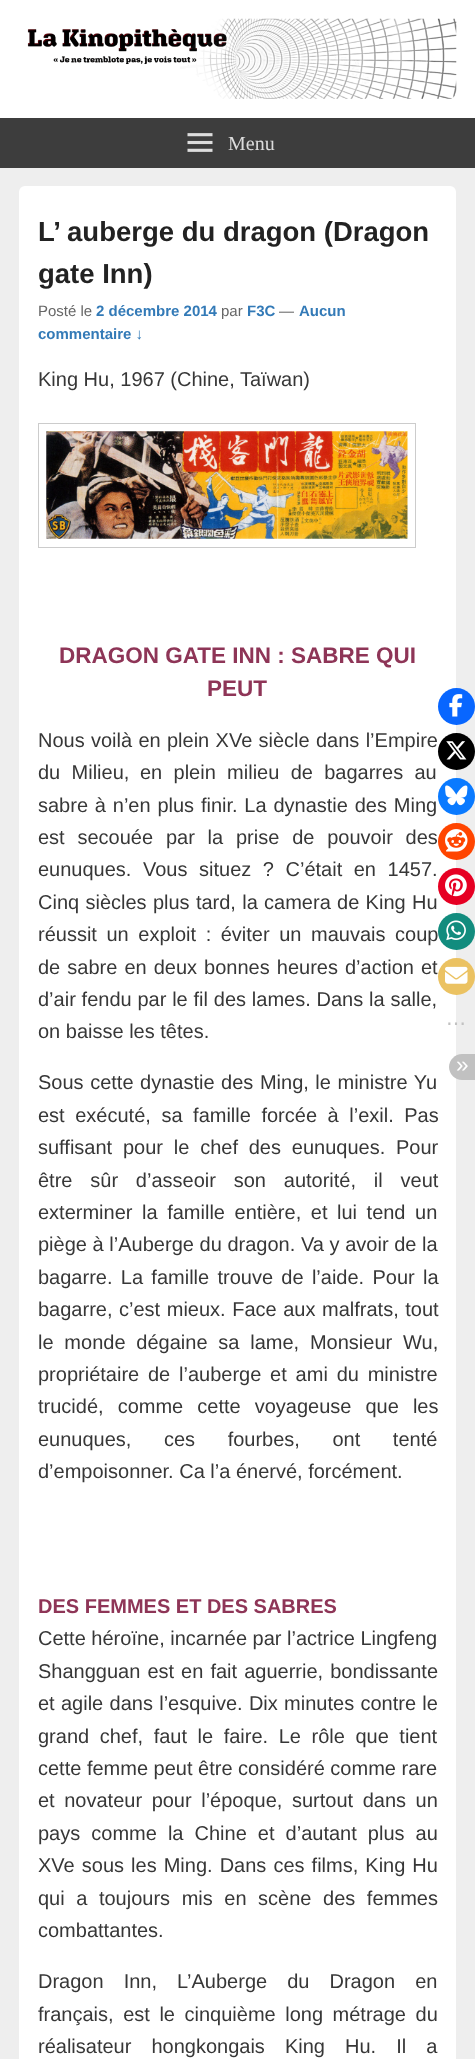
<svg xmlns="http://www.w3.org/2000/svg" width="475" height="2059">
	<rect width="100%" height="100%" fill="#EEEEEE" />
	<rect x="0" y="0" width="475" height="118" fill="#FFFFFF" />
	<image x="27" y="18" width="430" height="81" href="assets/img1.png" />
	<rect x="0" y="118" width="475" height="50" fill="#3D3D3D" />
	<image x="187" y="133" width="26" height="19" href="assets/img2.png" />
	<text x="228" y="150" font-family="Liberation Serif" font-size="20" fill="#DDDDDD">Menu</text>
	<rect x="19" y="186" width="437" height="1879" rx="6" fill="#FFFFFF" />
	<g font-family="Liberation Sans" font-size="27.5" font-weight="700" fill="#222222">
		<text x="38" y="241">L’ auberge du dragon (Dragon</text>
		<text x="38" y="283">gate Inn)</text>
	</g>
	<text x="38" y="316" font-family="Liberation Sans" font-size="15" fill="#666666">Posté le</text>
	<text x="96" y="316" font-family="Liberation Sans" font-size="15" font-weight="700" fill="#337AB7">2 décembre 2014</text>
	<text x="221" y="316" font-family="Liberation Sans" font-size="15" fill="#666666">par</text>
	<text x="247" y="316" font-family="Liberation Sans" font-size="15" font-weight="700" fill="#337AB7">F3C</text>
	<text x="279" y="316" font-family="Liberation Sans" font-size="15" fill="#666666">—</text>
	<g font-family="Liberation Sans" font-size="15" font-weight="700" fill="#337AB7">
		<text x="299" y="316">Aucun</text>
		<text x="38" y="339">commentaire ↓</text>
	</g>
	<text x="38" y="386" font-family="Liberation Sans" font-size="20" fill="#373737">King Hu, 1967 (Chine, Taïwan)</text>
	<rect x="38.5" y="423.5" width="377" height="124" fill="none" stroke="#CCCCCC" />
	<image x="46" y="431" width="362" height="108" href="assets/img3.png" />
	<g font-family="Liberation Sans" font-size="22.5" font-weight="700" fill="#8E3557">
		<text x="59" y="663">DRAGON GATE INN : SABRE QUI</text>
		<text x="207" y="696">PEUT</text>
	</g>
	<g font-family="Liberation Sans" font-size="20" fill="#373737">
		<text x="38" y="747" word-spacing="0.75">Nous voilà en plein XVe siècle dans l’Empire</text>
		<text x="38" y="779" word-spacing="5.75">du Milieu,</text>
		<text x="140" y="779" word-spacing="5.75">en plein milieu de bagarres au</text>
		<text x="38" y="812" word-spacing="1.25">sabre à n’en plus finir. La dynastie des Ming</text>
		<text x="38" y="844" word-spacing="7.25">est secouée par la prise de pouvoir des</text>
		<text x="38" y="876" word-spacing="6">eunuques. Vous situez ? C’était en 1457.</text>
		<text x="38" y="909" word-spacing="0.75">Cinq siècles plus tard, la camera de King Hu</text>
		<text x="38" y="941" word-spacing="4">réussit un exploit : éviter un mauvais coup</text>
		<text x="38" y="974" word-spacing="1.5">de sabre en deux bonnes heures d’action et</text>
		<text x="38" y="1006" word-spacing="0.25">d’air fendu par le fil des lames. Dans la salle,</text>
		<text x="38" y="1038">on baisse les têtes.</text>
		<text x="38" y="1089" word-spacing="1">Sous cette dynastie des Ming, le ministre Yu</text>
		<text x="38" y="1122" word-spacing="5">est exécuté, sa famille forcée à l’exil. Pas</text>
		<text x="38" y="1154" word-spacing="5.25">suffisant pour le chef des eunuques. Pour</text>
		<text x="38" y="1187" word-spacing="12.25">être sûr d’asseoir son autorité, il veut</text>
		<text x="38" y="1219" word-spacing="4">exterminer la famille entière, et lui tend un</text>
		<text x="38" y="1251" word-spacing="0.1">piège à l’Auberge du dragon. Va y avoir de la</text>
		<text x="38" y="1284" word-spacing="2.75">bagarre. La famille trouve de l’aide. Pour la</text>
		<text x="38" y="1316" word-spacing="1">bagarre, c’est mieux. Face aux malfrats, tout</text>
		<text x="38" y="1349" word-spacing="5.25">le monde dégaine sa lame, Monsieur Wu,</text>
		<text x="38" y="1381" word-spacing="3.25">propriétaire de l’auberge et ami du ministre</text>
		<text x="38" y="1413" word-spacing="8.5">trucidé, comme cette voyageuse que les</text>
		<text x="38" y="1446" word-spacing="27">eunuques, ces fourbes, ont tenté</text>
		<text x="38" y="1478">d’empoisonner. Ca l’a énervé, forcément.</text>
	</g>
	<text x="38" y="1613" font-family="Liberation Sans" font-size="20" font-weight="700" fill="#8E3557">DES FEMMES ET DES SABRES</text>
	<g font-family="Liberation Sans" font-size="20" fill="#373737">
		<text x="38" y="1645">Cette héroïne, incarnée par l’actrice Lingfeng</text>
		<text x="38" y="1678" word-spacing="1.5">Shangguan est en fait aguerrie, bondissante</text>
		<text x="38" y="1710" word-spacing="0.75">et agile dans l’esquive. Dix minutes contre le</text>
		<text x="38" y="1743" word-spacing="5">grand chef, faut le faire. Le rôle que tient</text>
		<text x="38" y="1775">cette femme peut être considéré comme rare</text>
		<text x="38" y="1807" word-spacing="4">et novateur pour l’époque, surtout dans un</text>
		<text x="38" y="1840" word-spacing="5.5">pays comme la Chine et d’autant plus au</text>
		<text x="38" y="1872" word-spacing="1.5">XVe sous les Ming. Dans ces films, King Hu</text>
		<text x="38" y="1905" word-spacing="6">qui a toujours mis en scène des femmes</text>
		<text x="38" y="1937">combattantes.</text>
		<text x="38" y="1988" word-spacing="14.5">Dragon Inn, L’Auberge du Dragon en</text>
		<text x="38" y="2021" word-spacing="4">français, est le cinquième long métrage du</text>
		<text x="38" y="2053" word-spacing="14.5">réalisateur hongkongais King Hu. Il a</text>
	</g>
	<circle cx="456.5" cy="706.5" r="18.5" fill="#0866FF" />
	<image x="449" y="694" width="14" height="23" href="assets/img4.png" />
	<circle cx="456.5" cy="751.5" r="18.5" fill="#000000" />
	<image x="446" y="741" width="21" height="19" href="assets/img5.png" />
	<circle cx="456.5" cy="796.5" r="18.5" fill="#0A7AFF" />
	<image x="445" y="785" width="23" height="21" href="assets/img6.png" />
	<circle cx="456.5" cy="841.5" r="18.5" fill="#FF4500" />
	<image x="445" y="829" width="23" height="23" href="assets/img7.png" />
	<circle cx="456.5" cy="886.5" r="18.5" fill="#E60023" />
	<image x="445" y="874" width="22" height="23" href="assets/img8.png" />
	<circle cx="456.5" cy="931.5" r="18.5" fill="#128C7E" />
	<image x="446" y="920" width="20" height="21" href="assets/img9.png" />
	<circle cx="456.5" cy="976.5" r="18.5" fill="#EBC262" />
	<image x="445" y="966" width="23" height="18" href="assets/img10.png" />
	<text x="446" y="1030" font-family="DejaVu Sans" font-size="20" fill="#C1C1C1">⋯</text>
	<path d="M462 1054H475V1080H462C455 1080 449 1074 449 1067C449 1060 455 1054 462 1054Z" fill="#C1C1C1" />
	<text x="456" y="1072" font-family="Liberation Sans" font-size="22.5" fill="#FFFFFF">»</text>
</svg>
